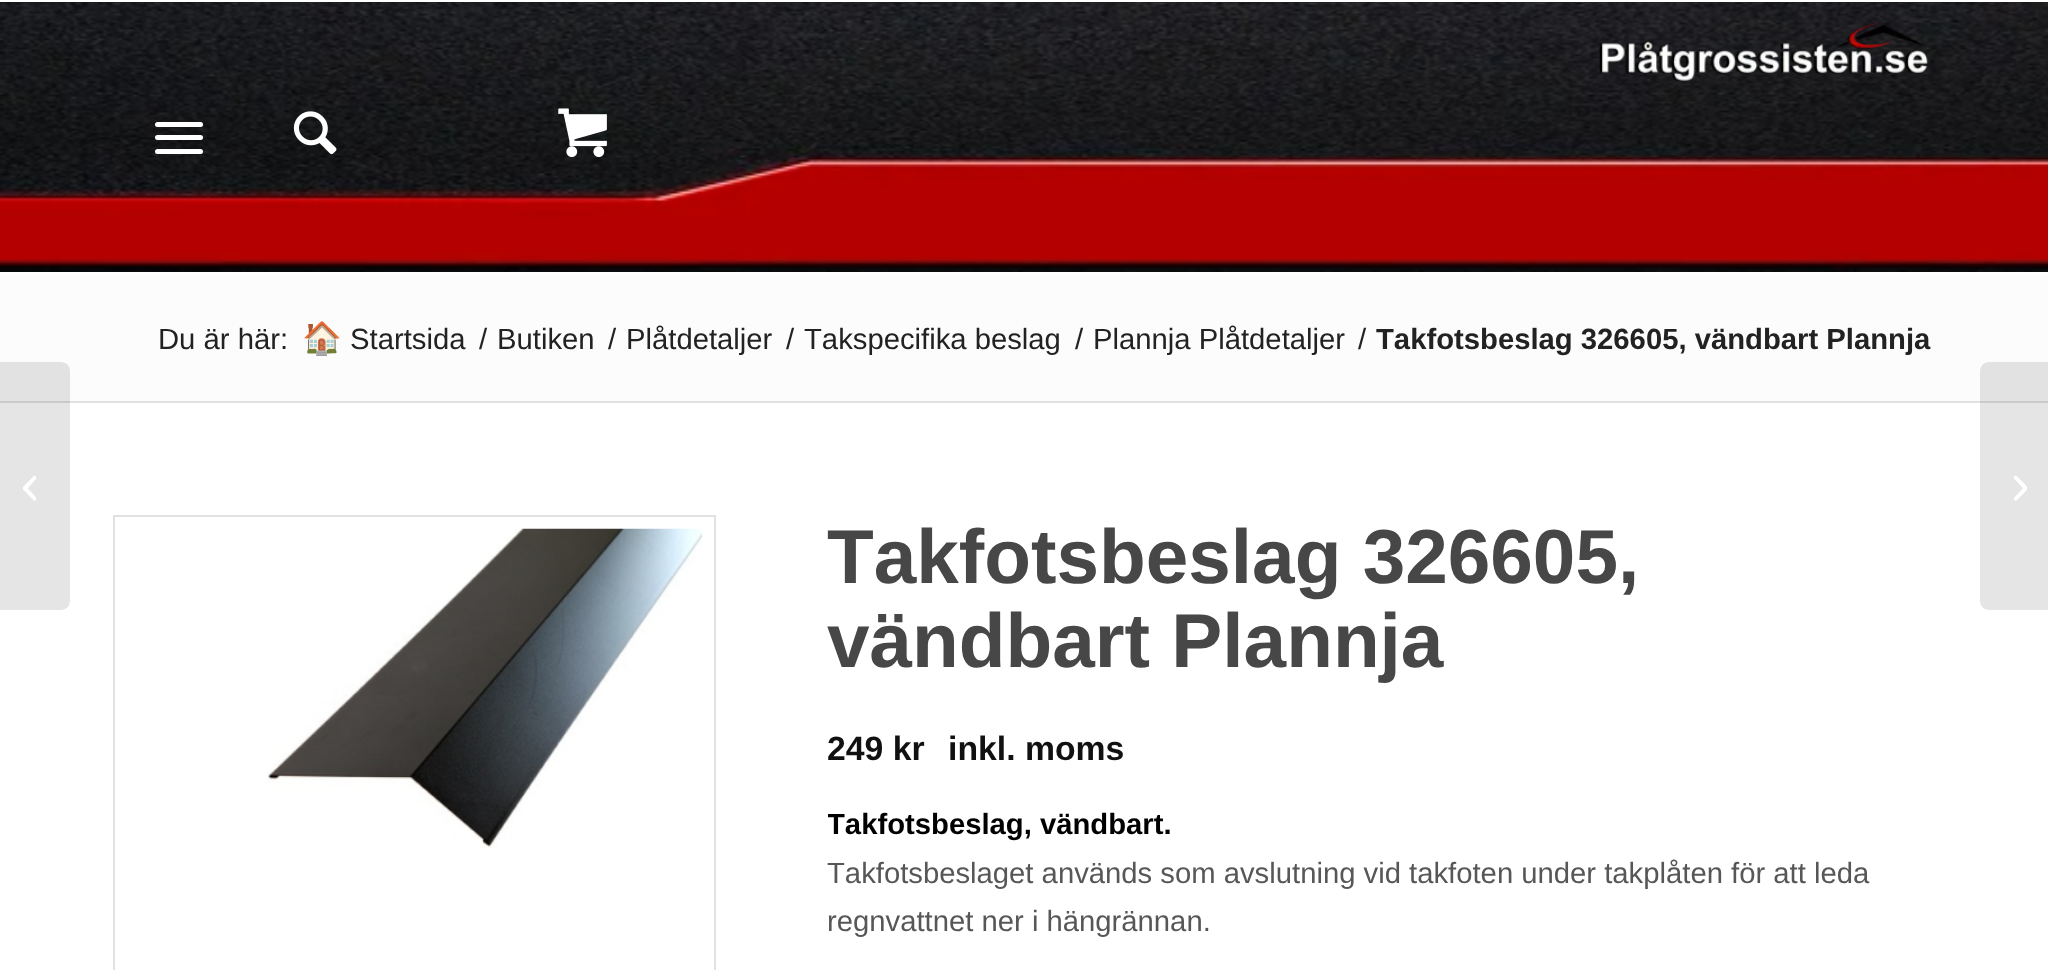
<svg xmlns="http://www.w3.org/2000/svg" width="2048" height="970">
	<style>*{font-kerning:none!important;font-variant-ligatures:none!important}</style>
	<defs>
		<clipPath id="clip1"><rect x="828" y="515" width="1109" height="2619" /></clipPath>
	</defs>
	<rect width="100%" height="100%" fill="#FFFFFF" />
	<image x="0" y="2" width="2048" height="270" href="assets/img1.png" />
	<image x="1599" y="22" width="330" height="60" href="assets/img2.png" />
	<rect x="155" y="135" width="48" height="5" rx="2.5" fill="#FFFFFF" />
	<rect x="155" y="122" width="48" height="5" rx="2.5" fill="#FFFFFF" />
	<rect x="155" y="149" width="48" height="5" rx="2.5" fill="#FFFFFF" />
	<image x="293" y="111" width="44" height="44" href="assets/img3.png" />
	<image x="558" y="108" width="49" height="50" href="assets/img4.png" />
	<rect x="0" y="275" width="2048" height="126" fill="#FCFCFC" />
	<rect x="0" y="401" width="2048" height="2" fill="#E1E1E1" />
	<path d="M0 362H61C66 362 70 366 70 371V601C70 606 66 610 61 610H0Z" fill="#000000" fill-opacity="0.1" />
	<image x="23" y="475" width="13" height="26" href="assets/img5.png" />
	<text x="158" y="349" font-family="Liberation Sans" font-size="29.25" fill="#222222">Du är här:</text>
	<text x="302" y="349" font-family="Noto Color Emoji" font-size="32" fill="#222222">🏠</text>
	<g font-family="Liberation Sans" font-size="29.25" fill="#222222">
		<text x="350" y="349">Startsida</text>
		<text x="479" y="349">/</text>
		<text x="497" y="349">Butiken</text>
		<text x="608" y="349">/</text>
		<text x="626" y="349">Plåtdetaljer</text>
		<text x="786" y="349">/</text>
		<text x="804" y="349">Takspecifika beslag</text>
		<text x="1075" y="349">/</text>
		<text x="1093" y="349">Plannja Plåtdetaljer</text>
		<text x="1358" y="349">/</text>
	</g>
	<text x="1376" y="349" font-family="Liberation Sans" font-size="29.25" font-weight="700" fill="#222222">Takfotsbeslag 326605, vändbart Plannja</text>
	<rect x="114" y="516" width="601" height="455" fill="none" stroke="#E1E1E1" stroke-width="2" />
	<image x="266" y="528" width="436" height="321" href="assets/img6.png" />
	<g font-family="Liberation Sans" font-size="76.5" font-weight="700" fill="#474747">
		<text x="827" y="583">Takfotsbeslag 326605,</text>
		<text x="827" y="667">vändbart Plannja</text>
	</g>
	<g font-family="Liberation Sans" font-size="33.75" font-weight="700" fill="#111111">
		<text x="827" y="760">249 kr</text>
		<text x="948" y="760">inkl. moms</text>
	</g>
	<g clip-path="url(#clip1)">
		<text x="827" y="834" font-family="Liberation Sans" font-size="29.25" font-weight="700" fill="#000000">Takfotsbeslag, vändbart.</text>
	</g>
	<g font-family="Liberation Sans" font-size="29.25" fill="#575757">
		<text x="827" y="883">Takfotsbeslaget används som avslutning vid takfoten under takplåten för att leda</text>
		<text x="827" y="931">regnvattnet ner i hängrännan.</text>
	</g>
	<path d="M1989 362H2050V610H1989C1984 610 1980 606 1980 601V371C1980 366 1984 362 1989 362Z" fill="#000000" fill-opacity="0.1" />
	<image x="2014" y="475" width="13" height="26" href="assets/img7.png" />
</svg>
